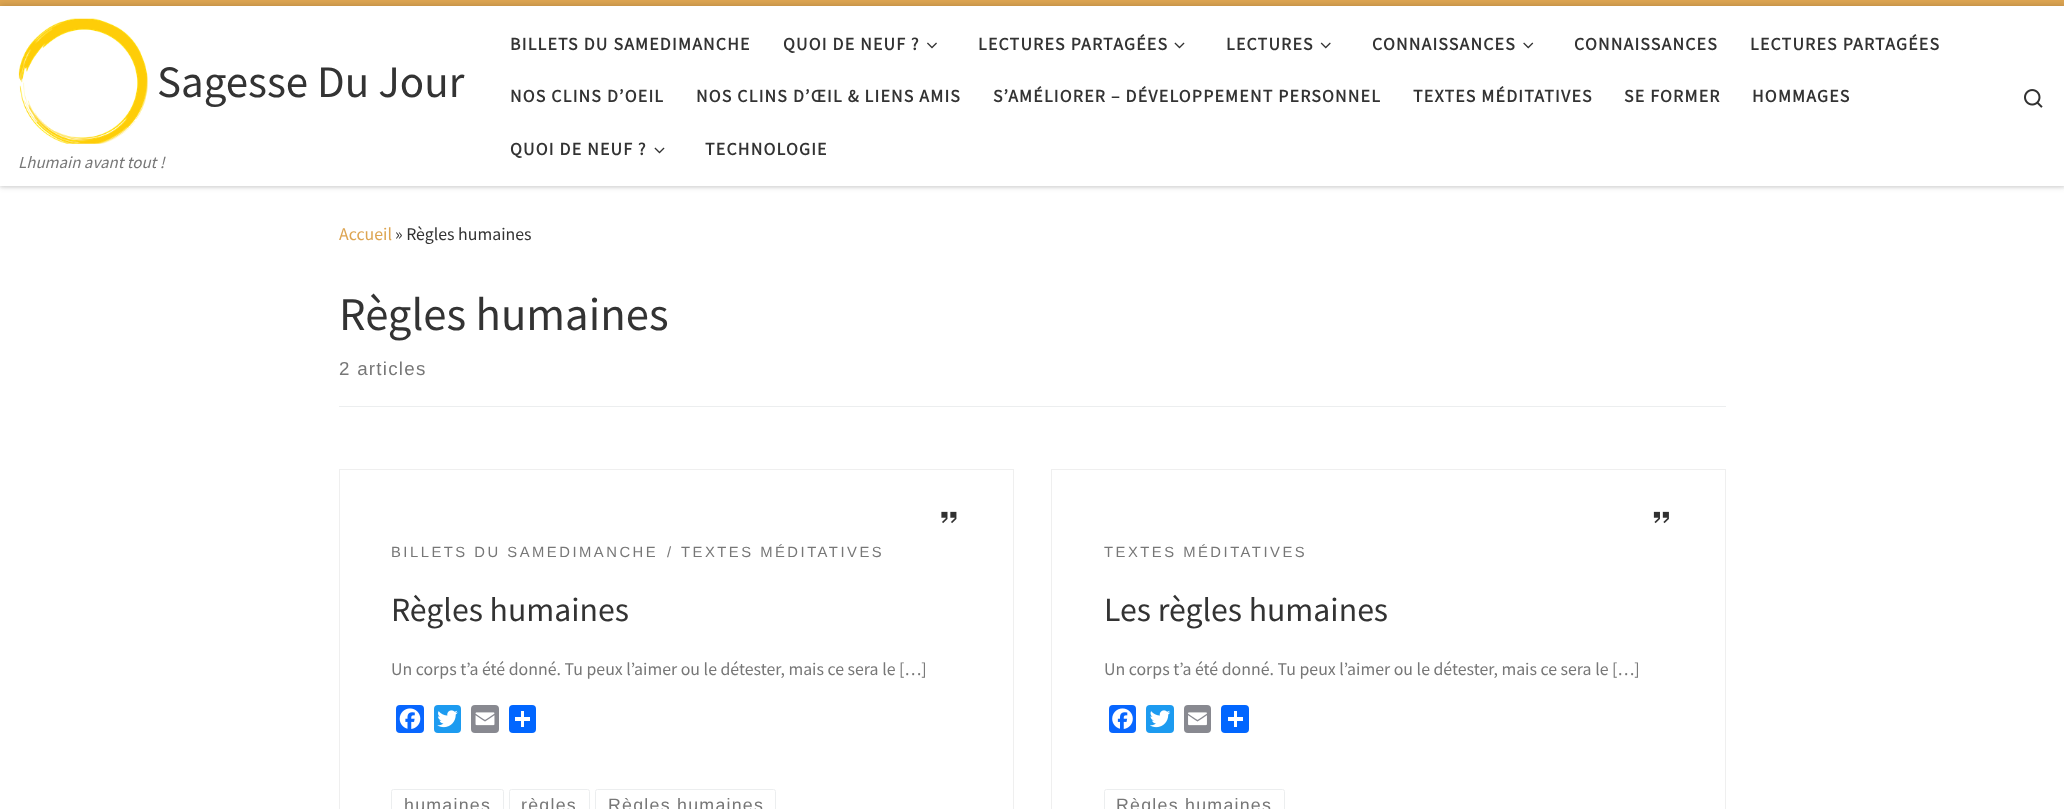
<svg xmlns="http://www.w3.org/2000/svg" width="2064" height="809">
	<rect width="100%" height="100%" fill="#FFFFFF" />
	<rect x="0" y="3" width="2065" height="185" fill="#666666" fill-opacity="0.08" filter="blur(1px)" />
	<rect x="0" y="0" width="2064" height="6" fill="#DDA552" />
	<rect x="0" y="6" width="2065" height="180" fill="#000000" fill-opacity="0.2" filter="blur(3px)" />
	<rect x="0" y="6" width="2064" height="180" fill="#FFFFFF" />
	<image x="18" y="18" width="130" height="126" href="assets/img1.png" />
	<text x="157" y="97" font-family="Source Sans Pro" font-size="45" fill="#333333">Sagesse Du Jour</text>
	<text x="18" y="168" font-family="Source Sans Pro" font-size="16.9" font-style="italic" fill="#777777">Lhumain avant tout !</text>
	<g font-family="Source Sans Pro" font-size="17.8" font-weight="700" letter-spacing="1.25" fill="#333333">
		<text x="510" y="50">BILLETS DU SAMEDIMANCHE</text>
		<text x="783" y="50">QUOI DE NEUF ?</text>
	</g>
	<image x="927" y="42" width="10" height="7" href="assets/img2.png" />
	<text x="978" y="50" font-family="Source Sans Pro" font-size="17.8" font-weight="700" letter-spacing="1.25" fill="#333333">LECTURES PARTAGÉES</text>
	<image x="1174" y="42" width="11" height="7" href="assets/img3.png" />
	<text x="1226" y="50" font-family="Source Sans Pro" font-size="17.8" font-weight="700" letter-spacing="1.25" fill="#333333">LECTURES</text>
	<image x="1320" y="42" width="11" height="7" href="assets/img4.png" />
	<text x="1372" y="50" font-family="Source Sans Pro" font-size="17.8" font-weight="700" letter-spacing="1.25" fill="#333333">CONNAISSANCES</text>
	<image x="1523" y="42" width="11" height="7" href="assets/img5.png" />
	<g font-family="Source Sans Pro" font-size="17.8" font-weight="700" letter-spacing="1.25" fill="#333333">
		<text x="1574" y="50">CONNAISSANCES</text>
		<text x="1750" y="50">LECTURES PARTAGÉES</text>
		<text x="510" y="102">NOS CLINS D’OEIL</text>
		<text x="696" y="102">NOS CLINS D’ŒIL &amp; LIENS AMIS</text>
		<text x="993" y="102">S’AMÉLIORER – DÉVELOPPEMENT PERSONNEL</text>
		<text x="1413" y="102">TEXTES MÉDITATIVES</text>
		<text x="1624" y="102">SE FORMER</text>
		<text x="1752" y="102">HOMMAGES</text>
		<text x="510" y="155">QUOI DE NEUF ?</text>
	</g>
	<image x="654" y="147" width="11" height="7" href="assets/img3.png" />
	<text x="705" y="155" font-family="Source Sans Pro" font-size="17.8" font-weight="700" letter-spacing="1.25" fill="#333333">TECHNOLOGIE</text>
	<image x="2024" y="89" width="19" height="19" href="assets/img6.png" />
	<text x="339" y="240" font-family="Source Sans Pro" font-size="17.8" fill="#DDA552">Accueil</text>
	<text x="395" y="240" font-family="Source Sans Pro" font-size="17.8" fill="#333333">» Règles humaines</text>
	<text x="339" y="330" font-family="Source Sans Pro" font-size="46.75" fill="#333333">Règles humaines</text>
	<text x="339" y="375" font-family="Liberation Sans" font-size="18.75" letter-spacing="1.25" fill="#777777">2 articles</text>
	<rect x="339" y="406" width="1387" height="1" fill="#ECEEEF" />
	<rect x="339.5" y="469.5" width="674" height="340" fill="none" stroke="#EFEFEF" />
	<image x="941" y="511" width="16" height="13" href="assets/img7.png" />
	<g font-family="Liberation Sans" font-size="14.8" letter-spacing="2.5" fill="#777777">
		<text x="391" y="557">BILLETS DU SAMEDIMANCHE</text>
		<text x="667" y="557">/</text>
		<text x="681" y="557">TEXTES MÉDITATIVES</text>
	</g>
	<text x="391" y="621" font-family="Source Sans Pro" font-size="33.75" fill="#333333">Règles humaines</text>
	<text x="391" y="675" font-family="Source Sans Pro" font-size="17.8" fill="#777777">Un corps t’a été donné. Tu peux l’aimer ou le détester, mais ce sera le […]</text>
	<rect x="396" y="705" width="28" height="28" rx="4" fill="#0866FF" />
	<image x="399" y="708" width="22" height="21" href="assets/img8.png" />
	<rect x="434" y="705" width="27" height="28" rx="4" fill="#1D9BF0" />
	<image x="437" y="710" width="21" height="18" href="assets/img9.png" />
	<rect x="471" y="705" width="28" height="28" rx="4" fill="#888990" />
	<image x="475" y="712" width="20" height="14" href="assets/img10.png" />
	<rect x="509" y="705" width="27" height="28" rx="4" fill="#0166FF" />
	<rect x="521" y="711" width="3" height="16" fill="#FFFFFF" />
	<rect x="515" y="717" width="15" height="4" fill="#FFFFFF" />
	<rect x="391.5" y="789.5" width="112" height="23" rx="2" fill="none" stroke="#ECEEEF" />
	<text x="404" y="811" font-family="Liberation Sans" font-size="17.8" letter-spacing="1.25" fill="#777777">humaines</text>
	<rect x="509.5" y="789.5" width="80" height="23" rx="2" fill="none" stroke="#ECEEEF" />
	<text x="521" y="811" font-family="Liberation Sans" font-size="17.8" letter-spacing="1.25" fill="#777777">règles</text>
	<rect x="595.5" y="789.5" width="180" height="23" rx="2" fill="none" stroke="#ECEEEF" />
	<text x="608" y="811" font-family="Liberation Sans" font-size="17.8" letter-spacing="1.25" fill="#777777">Règles humaines</text>
	<rect x="1051.5" y="469.5" width="674" height="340" fill="none" stroke="#EFEFEF" />
	<image x="1653" y="511" width="16" height="13" href="assets/img11.png" />
	<text x="1104" y="557" font-family="Liberation Sans" font-size="14.8" letter-spacing="2.5" fill="#777777">TEXTES MÉDITATIVES</text>
	<text x="1104" y="621" font-family="Source Sans Pro" font-size="33.75" fill="#333333">Les règles humaines</text>
	<text x="1104" y="675" font-family="Source Sans Pro" font-size="17.8" fill="#777777">Un corps t’a été donné. Tu peux l’aimer ou le détester, mais ce sera le […]</text>
	<rect x="1109" y="705" width="27" height="28" rx="4" fill="#0866FF" />
	<image x="1112" y="708" width="21" height="21" href="assets/img12.png" />
	<rect x="1146" y="705" width="28" height="28" rx="4" fill="#1D9BF0" />
	<image x="1150" y="710" width="21" height="18" href="assets/img13.png" />
	<rect x="1184" y="705" width="27" height="28" rx="4" fill="#888990" />
	<image x="1188" y="712" width="19" height="14" href="assets/img14.png" />
	<rect x="1221" y="705" width="28" height="28" rx="4" fill="#0166FF" />
	<rect x="1234" y="711" width="3" height="16" fill="#FFFFFF" />
	<rect x="1228" y="717" width="15" height="4" fill="#FFFFFF" />
	<rect x="1104.5" y="789.5" width="180" height="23" rx="2" fill="none" stroke="#ECEEEF" />
	<text x="1116" y="811" font-family="Liberation Sans" font-size="17.8" letter-spacing="1.25" fill="#777777">Règles humaines</text>
</svg>
